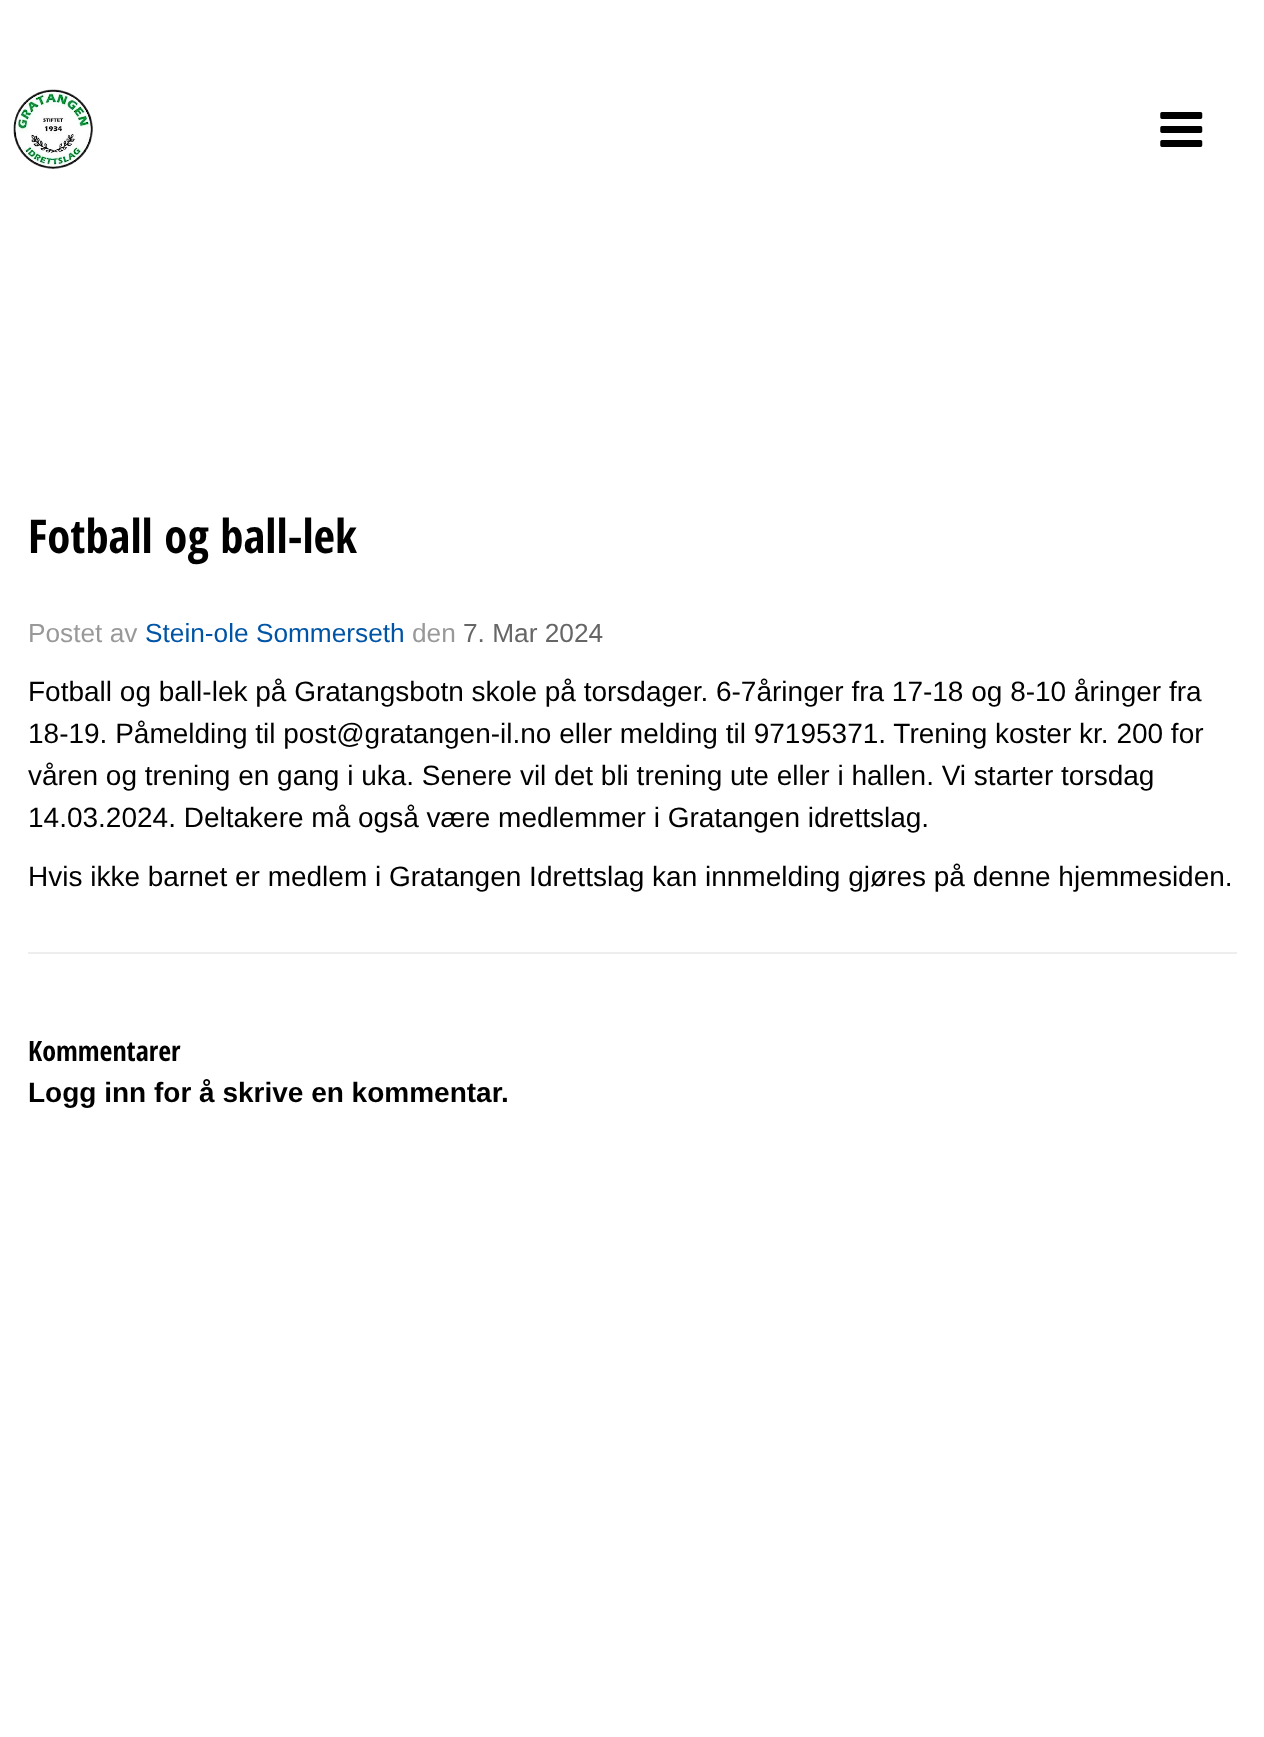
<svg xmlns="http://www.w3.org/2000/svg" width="1264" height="1737">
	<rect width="100%" height="100%" fill="#FFFFFF" />
	<image x="13" y="89" width="80" height="80" href="assets/img1.png" />
	<image x="1160" y="112" width="43" height="35" href="assets/img2.png" />
	<text x="28" y="553" font-family="Open Sans Condensed" font-size="46.75" font-weight="700" fill="#000000">Fotball og ball-lek</text>
	<text x="28" y="642" font-family="Liberation Sans" font-size="26.25" fill="#999999">Postet av</text>
	<text x="145" y="642" font-family="Liberation Sans" font-size="26.25" fill="#0054A6">Stein-ole Sommerseth</text>
	<text x="412" y="642" font-family="Liberation Sans" font-size="26.25" fill="#999999">den</text>
	<text x="463" y="642" font-family="Liberation Sans" font-size="26.25" fill="#666666">7. Mar 2024</text>
	<g font-family="Liberation Sans" font-size="28" fill="#000000">
		<text x="28" y="701">Fotball og ball-lek på Gratangsbotn skole på torsdager. 6-7åringer fra 17-18 og 8-10 åringer fra</text>
		<text x="28" y="743">18-19. Påmelding til post@gratangen-il.no eller melding til 97195371. Trening koster kr. 200 for</text>
		<text x="28" y="785">våren og trening en gang i uka. Senere vil det bli trening ute eller i hallen. Vi starter torsdag</text>
		<text x="28" y="827">14.03.2024. Deltakere må også være medlemmer i Gratangen idrettslag.</text>
		<text x="28" y="886">Hvis ikke barnet er medlem i Gratangen Idrettslag kan innmelding gjøres på denne hjemmesiden.</text>
	</g>
	<rect x="28" y="952" width="1209" height="2" fill="#EEEEEE" />
	<text x="28" y="1061" font-family="Open Sans Condensed" font-size="28" font-weight="700" fill="#000000">Kommentarer</text>
	<text x="28" y="1102" font-family="Liberation Sans" font-size="28" font-weight="700" fill="#000000">Logg inn for å skrive en kommentar.</text>
</svg>
